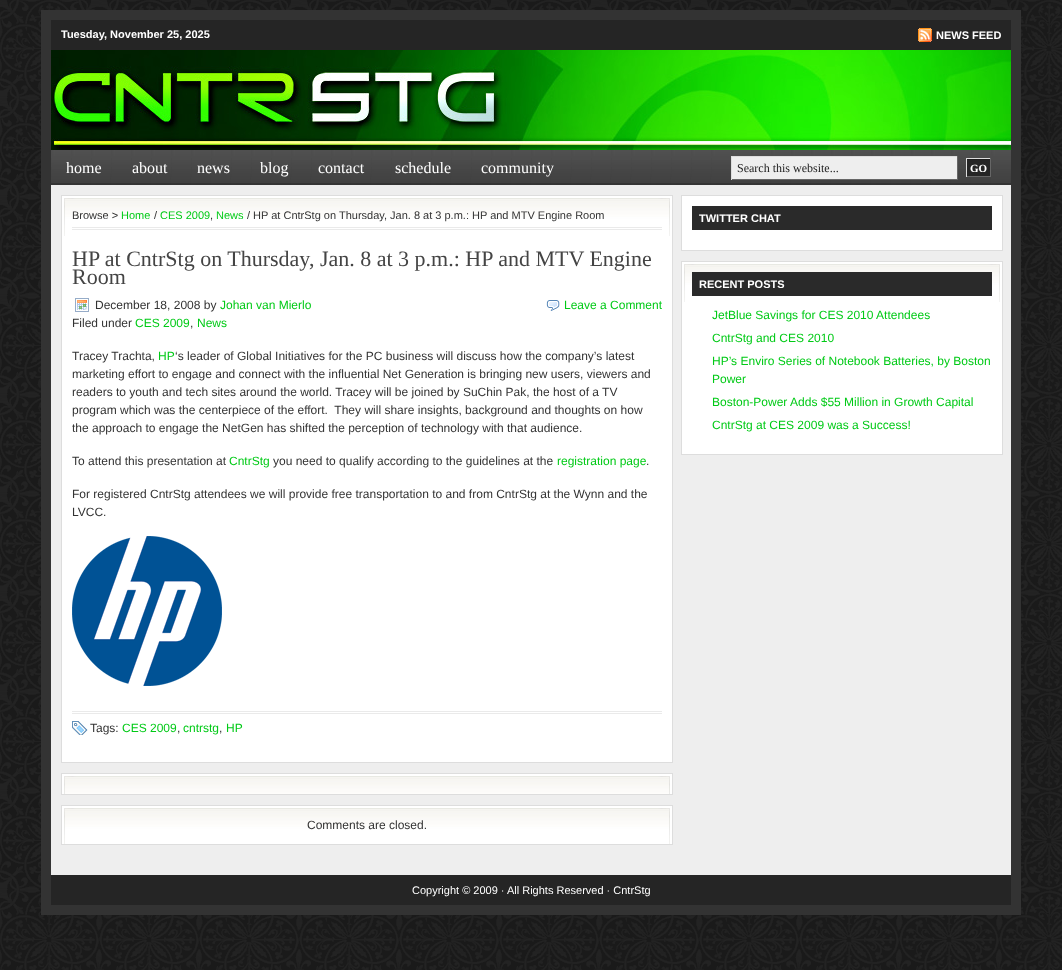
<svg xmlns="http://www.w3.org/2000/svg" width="1062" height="970">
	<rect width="100%" height="100%" fill="#FFFFFF" />
	<image x="0" y="0" width="1062" height="970" href="assets/img1.png" />
	<rect x="51" y="185" width="960" height="690" fill="#EEEEEE" />
	<rect x="46" y="15" width="970" height="895" fill="none" stroke="#333333" stroke-width="10" />
	<rect x="51" y="20" width="960" height="30" fill="#252525" />
	<text x="61" y="38" font-family="Liberation Sans" font-size="11" font-weight="700" fill="#FFFFFF">Tuesday, November 25, 2025</text>
	<image x="918" y="28" width="14" height="14" href="assets/img2.png" />
	<text x="936" y="39" font-family="Liberation Sans" font-size="11" font-weight="700" fill="#FFFFFF">NEWS FEED</text>
	<image x="51" y="50" width="960" height="100" href="assets/img3.png" />
	<image x="51" y="150" width="960" height="35" href="assets/img4.png" />
	<g font-family="Liberation Serif" font-size="16" fill="#FFFFFF">
		<text x="66" y="173">home</text>
		<text x="132" y="173">about</text>
		<text x="197" y="173">news</text>
		<text x="260" y="173">blog</text>
		<text x="318" y="173">contact</text>
		<text x="395" y="173">schedule</text>
		<text x="481" y="173">community</text>
	</g>
	<rect x="732" y="157" width="225" height="22" fill="#EEEEEE" />
	<rect x="731" y="156" width="227" height="1" fill="#DDDDDD" />
	<rect x="957" y="156" width="1" height="24" fill="#666666" />
	<rect x="731" y="179" width="227" height="1" fill="#666666" />
	<rect x="731" y="156" width="1" height="24" fill="#DDDDDD" />
	<text x="737" y="172" font-family="Liberation Serif" font-size="12" fill="#202020">Search this website...</text>
	<image x="967" y="159" width="23" height="17" href="assets/img5.png" />
	<rect x="966" y="158" width="25" height="1" fill="#DDDDDD" />
	<rect x="990" y="158" width="1" height="19" fill="#666666" />
	<rect x="966" y="176" width="25" height="1" fill="#666666" />
	<rect x="966" y="158" width="1" height="19" fill="#DDDDDD" />
	<text x="970" y="172" font-family="Liberation Serif" font-size="11" font-weight="700" fill="#FFFFFF">GO</text>
	<rect x="62" y="196" width="610" height="566" fill="#FFFFFF" />
	<image x="64" y="198" width="606" height="38" href="assets/img6.png" />
	<rect x="61.5" y="195.5" width="611" height="567" fill="none" stroke="#DDDDDD" />
	<rect x="72" y="227" width="590" height="1" fill="#EAEAEA" />
	<rect x="72" y="229" width="590" height="1" fill="#EAEAEA" />
	<text x="72" y="219" font-family="Liberation Sans" font-size="11" fill="#333333">Browse &gt;</text>
	<text x="121" y="219" font-family="Liberation Sans" font-size="11" fill="#00CA16">Home</text>
	<text x="154" y="219" font-family="Liberation Sans" font-size="11" fill="#333333">/</text>
	<text x="160" y="219" font-family="Liberation Sans" font-size="11" fill="#00CA16">CES 2009</text>
	<text x="210" y="219" font-family="Liberation Sans" font-size="11" fill="#333333">,</text>
	<text x="216" y="219" font-family="Liberation Sans" font-size="11" fill="#00CA16">News</text>
	<text x="247" y="219" font-family="Liberation Sans" font-size="11" fill="#333333">/ HP at CntrStg on Thursday, Jan. 8 at 3 p.m.: HP and MTV Engine Room</text>
	<g font-family="Liberation Serif" font-size="22" fill="#444444">
		<text x="72" y="266">HP at CntrStg on Thursday, Jan. 8 at 3 p.m.: HP and MTV Engine</text>
		<text x="72" y="284">Room</text>
	</g>
	<image x="75" y="298" width="14" height="14" href="assets/img7.png" />
	<text x="95" y="309" font-family="Liberation Sans" font-size="12" fill="#333333">December 18, 2008 by</text>
	<text x="220" y="309" font-family="Liberation Sans" font-size="12" fill="#00CA16">Johan van Mierlo</text>
	<text x="72" y="327" font-family="Liberation Sans" font-size="12" fill="#333333">Filed under</text>
	<text x="135" y="327" font-family="Liberation Sans" font-size="12" fill="#00CA16">CES 2009</text>
	<text x="190" y="327" font-family="Liberation Sans" font-size="12" fill="#333333">,</text>
	<text x="197" y="327" font-family="Liberation Sans" font-size="12" fill="#00CA16">News</text>
	<image x="546" y="300" width="14" height="11" href="assets/img8.png" />
	<text x="564" y="309" font-family="Liberation Sans" font-size="12" fill="#00CA16">Leave a Comment</text>
	<text x="72" y="360" font-family="Liberation Sans" font-size="12" fill="#333333">Tracey Trachta,</text>
	<text x="158" y="360" font-family="Liberation Sans" font-size="12" fill="#00CA16">HP</text>
	<g font-family="Liberation Sans" font-size="12" fill="#333333">
		<text x="175" y="360">‘s leader of Global Initiatives for the PC business will discuss how the company’s latest</text>
		<text x="72" y="378">marketing effort to engage and connect with the influential Net Generation is bringing new users, viewers and</text>
		<text x="72" y="396">readers to youth and tech sites around the world. Tracey will be joined by SuChin Pak, the host of a TV</text>
		<text x="72" y="414" xml:space="preserve">program which was the centerpiece of the effort.  They will share insights, background and thoughts on how</text>
		<text x="72" y="432">the approach to engage the NetGen has shifted the perception of technology with that audience.</text>
		<text x="72" y="465">To attend this presentation at</text>
	</g>
	<text x="229" y="465" font-family="Liberation Sans" font-size="12" fill="#00CA16">CntrStg</text>
	<text x="273" y="465" font-family="Liberation Sans" font-size="12" fill="#333333">you need to qualify according to the guidelines at the</text>
	<text x="557" y="465" font-family="Liberation Sans" font-size="12" fill="#00CA16">registration page</text>
	<g font-family="Liberation Sans" font-size="12" fill="#333333">
		<text x="646" y="465">.</text>
		<text x="72" y="498">For registered CntrStg attendees we will provide free transportation to and from CntrStg at the Wynn and the</text>
		<text x="72" y="516">LVCC.</text>
	</g>
	<image x="72" y="536" width="150" height="150" href="assets/img9.png" />
	<rect x="72" y="711" width="590" height="1" fill="#EAEAEA" />
	<rect x="72" y="713" width="590" height="1" fill="#EAEAEA" />
	<image x="72" y="721" width="16" height="14" href="assets/img10.png" />
	<text x="90" y="732" font-family="Liberation Sans" font-size="12" fill="#333333">Tags:</text>
	<text x="122" y="732" font-family="Liberation Sans" font-size="12" fill="#00CA16">CES 2009</text>
	<text x="177" y="732" font-family="Liberation Sans" font-size="12" fill="#333333">,</text>
	<text x="183" y="732" font-family="Liberation Sans" font-size="12" fill="#00CA16">cntrstg</text>
	<text x="219" y="732" font-family="Liberation Sans" font-size="12" fill="#333333">,</text>
	<text x="226" y="732" font-family="Liberation Sans" font-size="12" fill="#00CA16">HP</text>
	<rect x="62" y="774" width="610" height="20" fill="#FFFFFF" />
	<image x="64" y="776" width="606" height="18" href="assets/img11.png" />
	<rect x="61.5" y="773.5" width="611" height="21" fill="none" stroke="#DDDDDD" />
	<rect x="62" y="806" width="610" height="38" fill="#FFFFFF" />
	<image x="64" y="808" width="606" height="36" href="assets/img12.png" />
	<rect x="61.5" y="805.5" width="611" height="39" fill="none" stroke="#DDDDDD" />
	<text x="307" y="829" font-family="Liberation Sans" font-size="12" fill="#333333">Comments are closed.</text>
	<rect x="681.5" y="195.5" width="321" height="55" fill="#FFFFFF" stroke="#DDDDDD" />
	<rect x="692" y="206" width="300" height="24" fill="#2A2A2A" />
	<text x="699" y="222" font-family="Liberation Sans" font-size="11" font-weight="700" fill="#FFFFFF">TWITTER CHAT</text>
	<rect x="682" y="262" width="320" height="192" fill="#FFFFFF" />
	<image x="684" y="264" width="316" height="38" href="assets/img13.png" />
	<rect x="681.5" y="261.5" width="321" height="193" fill="none" stroke="#DDDDDD" />
	<rect x="692" y="272" width="300" height="24" fill="#2A2A2A" />
	<text x="699" y="288" font-family="Liberation Sans" font-size="11" font-weight="700" fill="#FFFFFF">RECENT POSTS</text>
	<g font-family="Liberation Sans" font-size="12" fill="#00CA16">
		<text x="712" y="319">JetBlue Savings for CES 2010 Attendees</text>
		<text x="712" y="342">CntrStg and CES 2010</text>
		<text x="712" y="365">HP’s Enviro Series of Notebook Batteries, by Boston</text>
		<text x="712" y="383">Power</text>
		<text x="712" y="406">Boston-Power Adds $55 Million in Growth Capital</text>
		<text x="712" y="429">CntrStg at CES 2009 was a Success!</text>
	</g>
	<rect x="51" y="875" width="960" height="30" fill="#252525" />
	<text x="412" y="894" font-family="Liberation Sans" font-size="11" fill="#FFFFFF">Copyright © 2009 · All Rights Reserved · CntrStg</text>
</svg>
